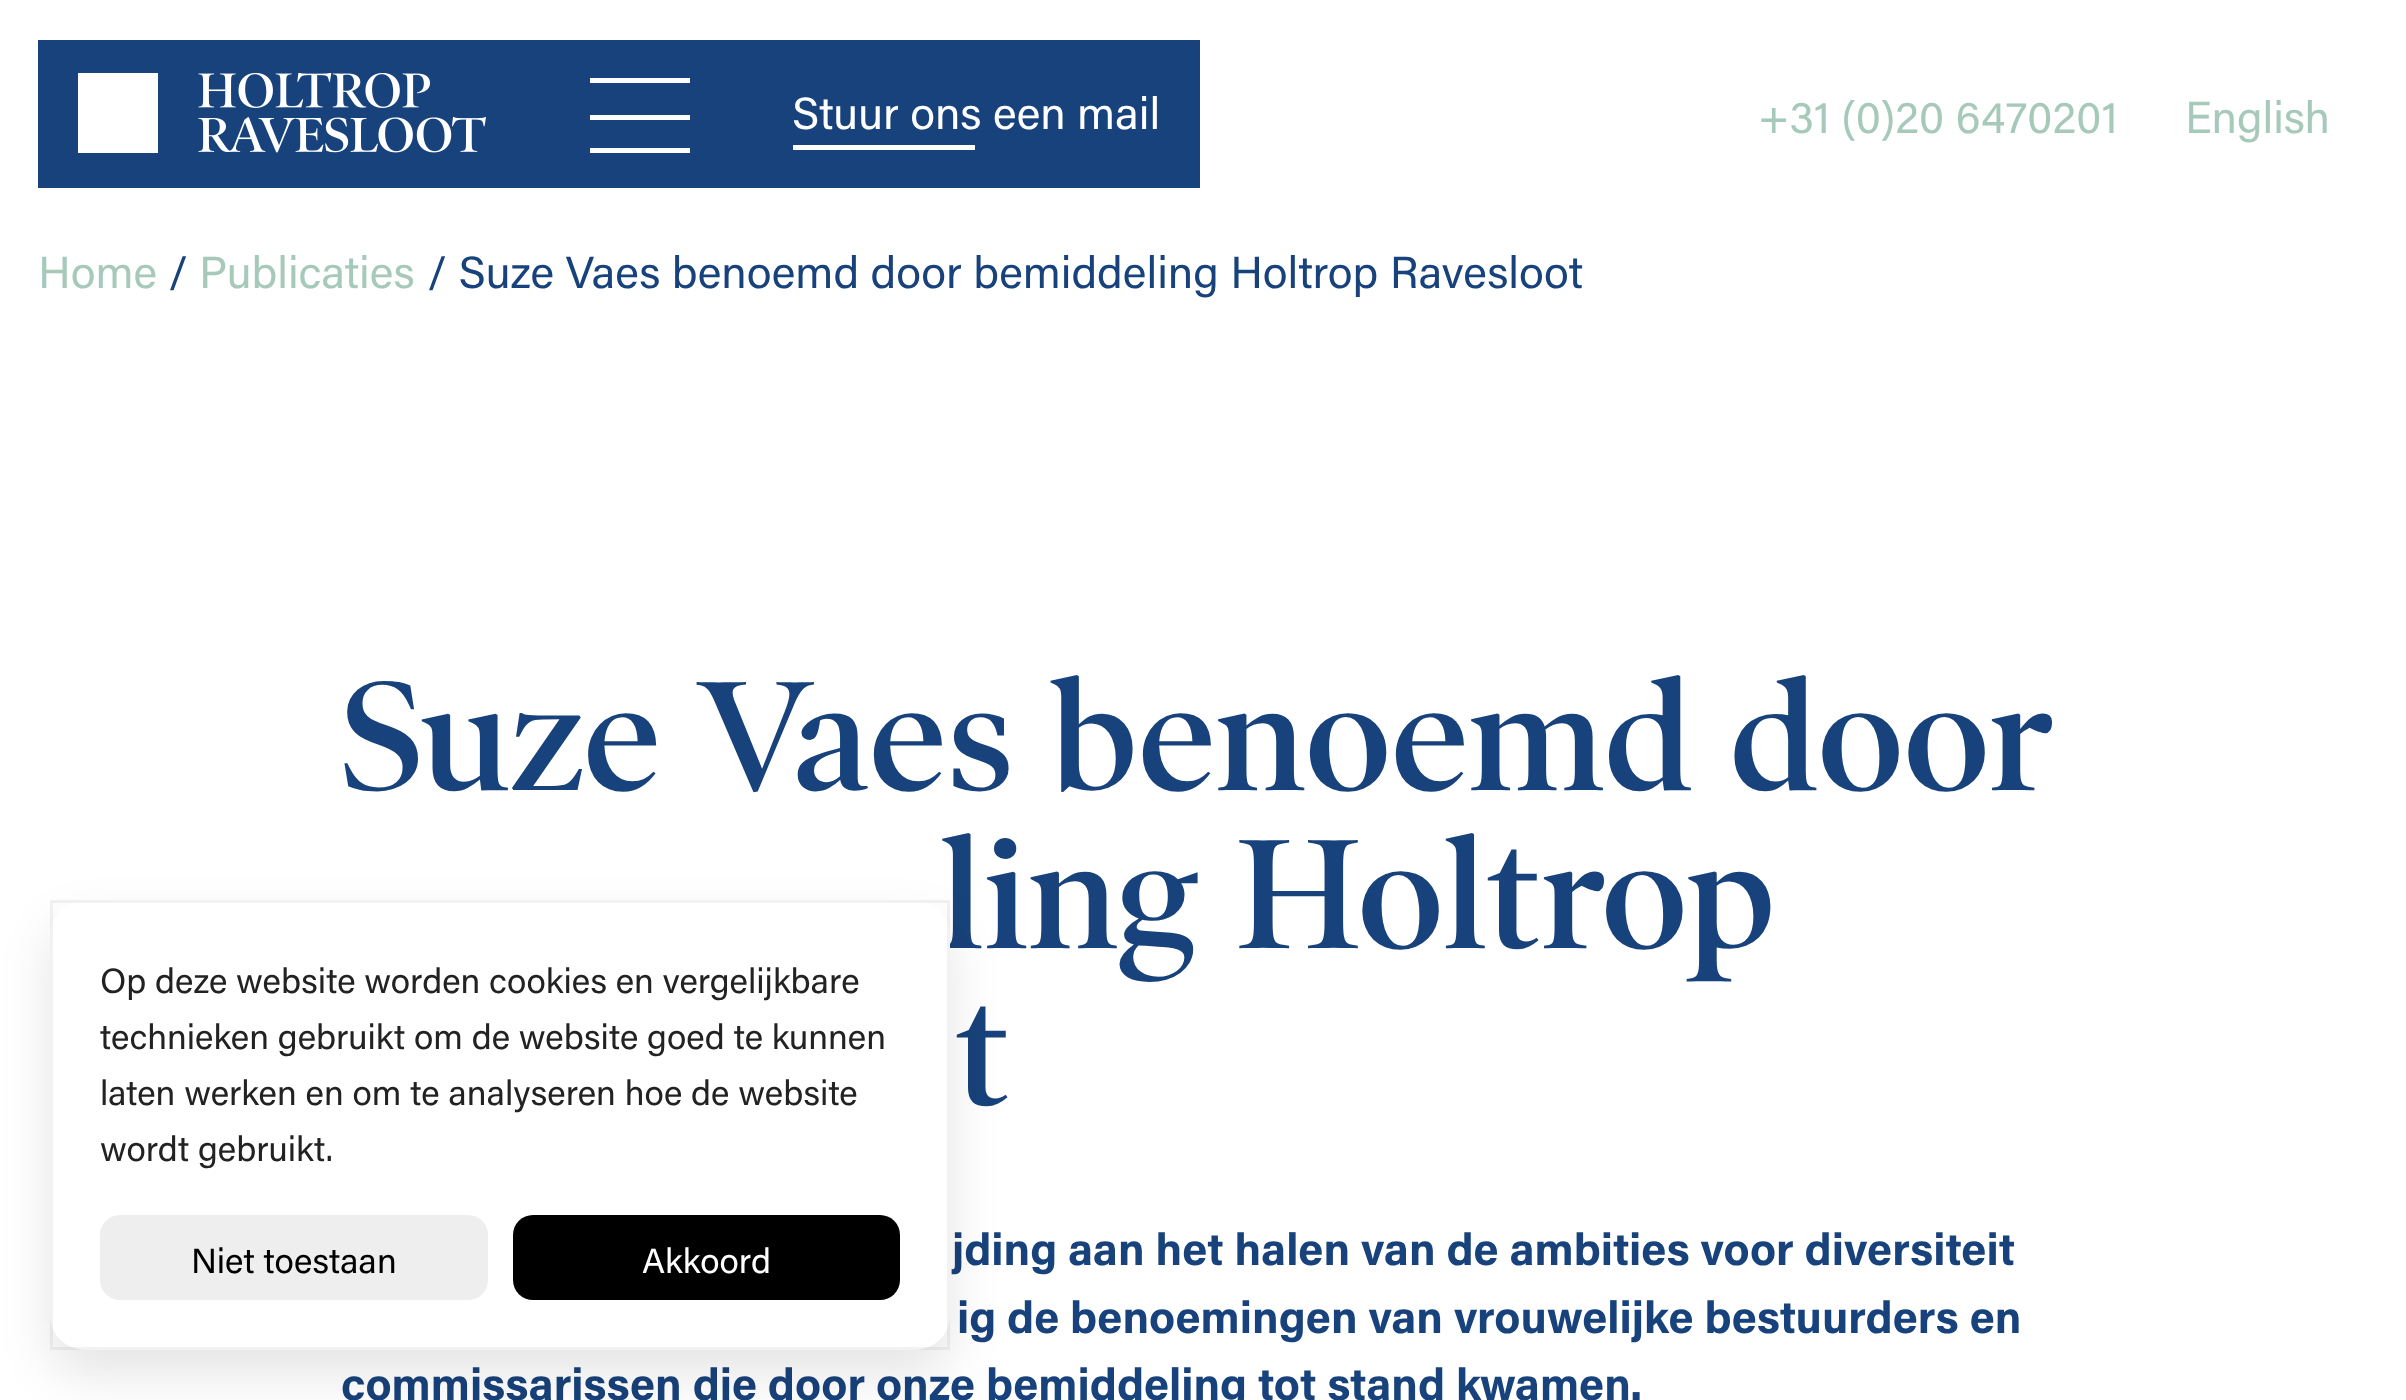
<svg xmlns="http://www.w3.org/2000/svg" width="2406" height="1400">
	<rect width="100%" height="100%" fill="#FFFFFF" />
	<rect x="38" y="40" width="1162" height="148" fill="#18427B" />
	<image x="78" y="73" width="408" height="80" href="assets/img1.png" />
	<rect x="590" y="78" width="100" height="5" fill="#FFFFFF" />
	<rect x="590" y="115" width="100" height="5" fill="#FFFFFF" />
	<rect x="590" y="148" width="100" height="5" fill="#FFFFFF" />
	<text x="792" y="129" font-family="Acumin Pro" font-size="45" fill="#FFFFFF">Stuur ons een mail</text>
	<rect x="793" y="145" width="182" height="5" fill="#FFFFFF" />
	<g font-family="Acumin Pro" font-size="45" fill="#A6C9BA">
		<text x="1758" y="133">+31 (0)20 6470201</text>
		<text x="2185" y="133">English</text>
		<text x="38" y="288">Home</text>
	</g>
	<text x="168" y="288" font-family="Acumin Pro" font-size="45" fill="#18427B">/</text>
	<text x="199" y="288" font-family="Acumin Pro" font-size="45" fill="#A6C9BA">Publicaties</text>
	<text x="427" y="288" font-family="Acumin Pro" font-size="45" fill="#18427B">/ Suze Vaes benoemd door bemiddeling Holtrop Ravesloot</text>
	<g font-family="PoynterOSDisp" font-size="157.5" font-weight="600" fill="#18427B">
		<text x="341" y="790">Suze Vaes benoemd door</text>
		<text x="940" y="948">ling Holtrop</text>
		<text x="956" y="1105">t</text>
	</g>
	<g font-family="Acumin Pro" font-size="45" font-weight="700" fill="#18427B">
		<text x="952" y="1265">jding aan het halen van de ambities voor diversiteit</text>
		<text x="957" y="1333">ig de benoemingen van vrouwelijke bestuurders en</text>
		<text x="341" y="1400">commissarissen die door onze bemiddeling tot stand kwamen.</text>
	</g>
	<rect x="50" y="925" width="900" height="450" rx="35" fill="#000000" fill-opacity="0.1" filter="blur(25px)" />
	<rect x="50" y="900" width="900" height="450" rx="35" fill="#FFFFFF" />
	<rect x="51.5" y="901.5" width="897" height="447" fill="none" stroke="#000000" stroke-opacity="0.05" stroke-width="3" />
	<g font-family="Acumin Pro" font-size="35" fill="#222222">
		<text x="100" y="993">Op deze website worden cookies en vergelijkbare</text>
		<text x="100" y="1049">technieken gebruikt om de website goed te kunnen</text>
		<text x="100" y="1105">laten werken en om te analyseren hoe de website</text>
		<text x="100" y="1161">wordt gebruikt.</text>
	</g>
	<rect x="100" y="1215" width="388" height="85" rx="20" fill="#EEEEEE" />
	<text x="191" y="1273" font-family="Acumin Pro" font-size="35" fill="#000000">Niet toestaan</text>
	<rect x="513" y="1215" width="387" height="85" rx="20" fill="#000000" />
	<text x="642" y="1273" font-family="Acumin Pro" font-size="35" fill="#FFFFFF">Akkoord</text>
</svg>
